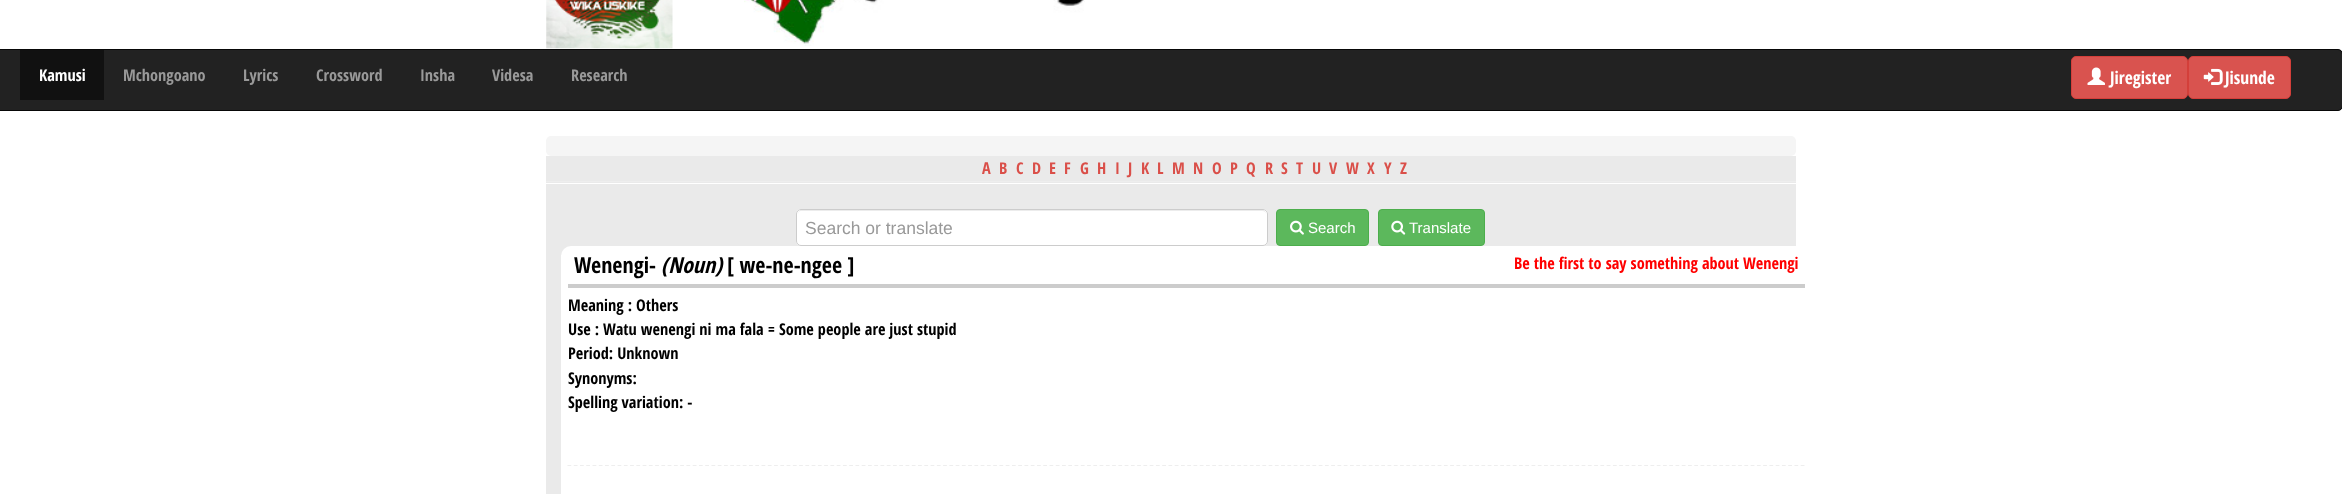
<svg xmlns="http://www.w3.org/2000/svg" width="2342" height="494">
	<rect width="100%" height="100%" fill="#FFFFFF" />
	<image x="546" y="0" width="127" height="49" href="assets/img1.png" />
	<image x="744" y="0" width="341" height="46" href="assets/img2.png" />
	<rect x="-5.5" y="49.5" width="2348" height="61" rx="4.5" fill="#222222" stroke="#080808" />
	<rect x="20" y="50" width="84" height="50" fill="#111111" />
	<text x="39" y="81" font-family="Open Sans Condensed" font-size="16.25" font-weight="700" fill="#FFFFFF">Kamusi</text>
	<g font-family="Open Sans Condensed" font-size="16.25" font-weight="700" fill="#999999">
		<text x="123" y="81">Mchongoano</text>
		<text x="243" y="81">Lyrics</text>
		<text x="316" y="81">Crossword</text>
		<text x="420" y="81">Insha</text>
		<text x="492" y="81">Videsa</text>
		<text x="571" y="81">Research</text>
	</g>
	<rect x="2071.5" y="56.5" width="116" height="42" rx="4.5" fill="#D9534F" stroke="#D43F3A" />
	<image x="2087" y="67" width="18" height="18" href="assets/img3.png" />
	<text x="2110" y="84" font-family="Open Sans Condensed" font-size="17.5" font-weight="700" fill="#FFFFFF">Jiregister</text>
	<rect x="2188.5" y="56.5" width="102" height="42" rx="4.5" fill="#D9534F" stroke="#D43F3A" />
	<image x="2203" y="68" width="20" height="17" href="assets/img4.png" />
	<text x="2225" y="84" font-family="Open Sans Condensed" font-size="17.5" font-weight="700" fill="#FFFFFF">Jisunde</text>
	<rect x="546" y="136" width="1250" height="20" rx="5" fill="#F5F5F5" />
	<rect x="546" y="156" width="1250" height="338" fill="#EAEAEA" />
	<g font-family="Open Sans Condensed" font-size="16.25" font-weight="700" fill="#DA4F49">
		<text x="982" y="174">A</text>
		<text x="999" y="174">B</text>
		<text x="1016" y="174">C</text>
		<text x="1032" y="174">D</text>
		<text x="1049" y="174">E</text>
		<text x="1064" y="174">F</text>
		<text x="1080" y="174">G</text>
		<text x="1097" y="174">H</text>
		<text x="1115" y="174">I</text>
		<text x="1128" y="174">J</text>
		<text x="1141" y="174">K</text>
		<text x="1157" y="174">L</text>
		<text x="1172" y="174">M</text>
		<text x="1193" y="174">N</text>
		<text x="1212" y="174">O</text>
		<text x="1230" y="174">P</text>
		<text x="1246" y="174">Q</text>
		<text x="1265" y="174">R</text>
		<text x="1281" y="174">S</text>
		<text x="1296" y="174">T</text>
		<text x="1312" y="174">U</text>
		<text x="1329" y="174">V</text>
		<text x="1346" y="174">W</text>
		<text x="1367" y="174">X</text>
		<text x="1384" y="174">Y</text>
		<text x="1400" y="174">Z</text>
	</g>
	<rect x="546" y="181" width="1250" height="1" fill="#EEEEEE" />
	<rect x="546" y="183" width="1250" height="1" fill="#FFFFFF" />
	<rect x="796" y="209" width="472" height="37" rx="5" fill="#FFFFFF" />
	<path d="M801 211H1262C1265 211 1266 213 1266 215C1266 212 1265 210 1262 210H802C799 210 798 212 798 215C798 213 799 211 801 211Z" fill="#ECECEC" />
	<rect x="796.5" y="209.5" width="471" height="36" rx="4.5" fill="none" stroke="#CCCCCC" />
	<text x="805" y="234" font-family="Liberation Sans" font-size="17.5" fill="#999999">Search or translate</text>
	<rect x="1276.5" y="209.5" width="92" height="36" rx="3.5" fill="#5CB85C" stroke="#4CAE4C" />
	<image x="1290" y="220" width="14" height="15" href="assets/img5.png" />
	<text x="1308" y="233" font-family="Liberation Sans" font-size="15" fill="#FFFFFF">Search</text>
	<rect x="1378.5" y="209.5" width="106" height="36" rx="3.5" fill="#5CB85C" stroke="#4CAE4C" />
	<image x="1391" y="220" width="15" height="15" href="assets/img6.png" />
	<text x="1409" y="233" font-family="Liberation Sans" font-size="15" fill="#FFFFFF">Translate</text>
	<rect x="561" y="246" width="1250" height="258" rx="10" fill="#FFFFFF" />
	<rect x="568" y="284" width="1237" height="4" fill="#CCCCCC" />
	<text x="574" y="273" font-family="Open Sans Condensed" font-size="22" font-weight="700" fill="#000000">Wenengi-</text>
	<text x="661" y="273" font-family="Open Sans Condensed" font-size="22" font-weight="700" font-style="italic" fill="#000000">(Noun)</text>
	<text x="727" y="273" font-family="Open Sans Condensed" font-size="22" font-weight="700" fill="#000000">[ we-ne-ngee ]</text>
	<text x="1514" y="269" font-family="Open Sans Condensed" font-size="16.25" font-weight="700" fill="#FF0000">Be the first to say something about Wenengi</text>
	<g font-family="Open Sans Condensed" font-size="16.25" font-weight="700" fill="#000000">
		<text x="568" y="311">Meaning : Others</text>
		<text x="568" y="335">Use : Watu wenengi ni ma fala = Some people are just stupid</text>
		<text x="568" y="359">Period: Unknown</text>
		<text x="568" y="384">Synonyms:</text>
		<text x="568" y="408">Spelling variation: -</text>
	</g>
	<path d="M567.5 465.5H1805" fill="none" stroke="#EEEEEE" stroke-width="1.2" stroke-dasharray="3.75 2.51" />
</svg>
